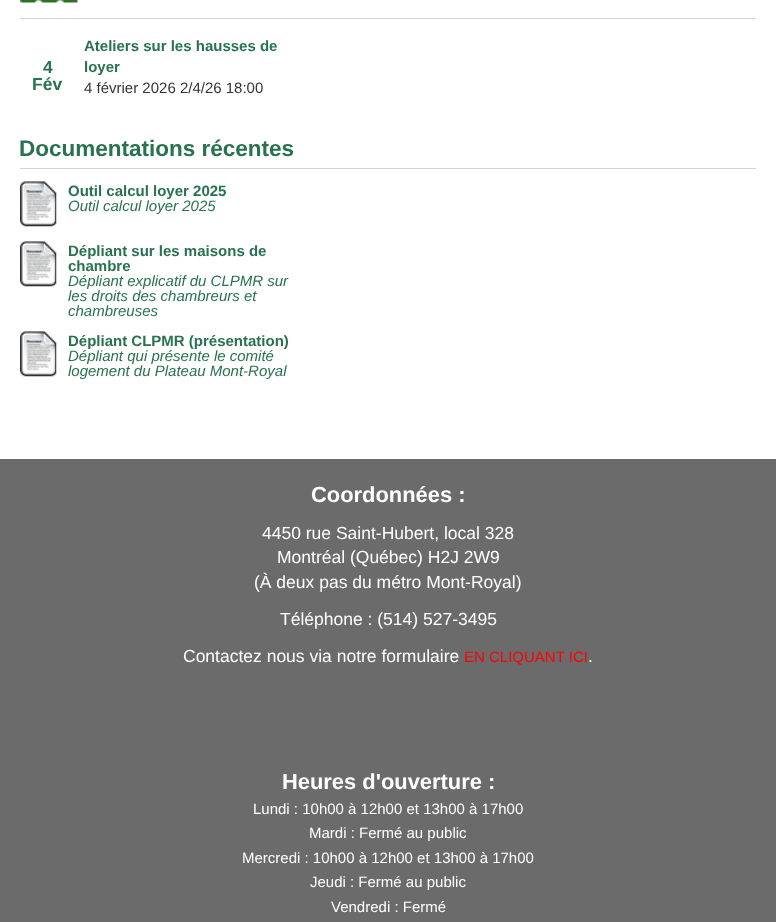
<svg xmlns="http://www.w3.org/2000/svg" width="776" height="922">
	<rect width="100%" height="100%" fill="#FFFFFF" />
	<image x="20" y="0" width="58" height="3" href="assets/img1.png" />
	<rect x="20" y="18" width="736" height="1" fill="#D2D2D2" />
	<g font-family="Liberation Sans" font-size="17.5" font-weight="700" fill="#28724F">
		<text x="43" y="73">4</text>
		<text x="32" y="90">Fév</text>
	</g>
	<g font-family="Liberation Sans" font-size="15" font-weight="700" fill="#28724F">
		<text x="84" y="51">Ateliers sur les hausses de</text>
		<text x="84" y="72">loyer</text>
	</g>
	<text x="84" y="93" font-family="Liberation Sans" font-size="15" fill="#333333">4 février 2026 2/4/26 18:00</text>
	<rect x="20" y="168" width="736" height="1" fill="#D2D2D2" />
	<text x="19" y="156" font-family="Liberation Sans" font-size="22.5" font-weight="700" fill="#28724F">Documentations récentes</text>
	<image x="20" y="181" width="37" height="46" href="assets/img2.png" />
	<text x="68" y="196" font-family="Liberation Sans" font-size="15" font-weight="700" fill="#28724F">Outil calcul loyer 2025</text>
	<text x="68" y="211" font-family="Liberation Sans" font-size="15" font-style="italic" fill="#28724F">Outil calcul loyer 2025</text>
	<image x="20" y="241" width="37" height="46" href="assets/img2.png" />
	<g font-family="Liberation Sans" font-size="15" font-weight="700" fill="#28724F">
		<text x="68" y="256">Dépliant sur les maisons de</text>
		<text x="68" y="271">chambre</text>
	</g>
	<g font-family="Liberation Sans" font-size="15" font-style="italic" fill="#28724F">
		<text x="68" y="286">Dépliant explicatif du CLPMR sur</text>
		<text x="68" y="301">les droits des chambreurs et</text>
		<text x="68" y="316">chambreuses</text>
	</g>
	<image x="20" y="331" width="37" height="46" href="assets/img2.png" />
	<text x="68" y="346" font-family="Liberation Sans" font-size="15" font-weight="700" fill="#28724F">Dépliant CLPMR (présentation)</text>
	<g font-family="Liberation Sans" font-size="15" font-style="italic" fill="#28724F">
		<text x="68" y="361">Dépliant qui présente le comité</text>
		<text x="68" y="376">logement du Plateau Mont-Royal</text>
	</g>
	<rect x="0" y="459" width="776" height="463" fill="#6B6B6B" />
	<text x="311" y="502" font-family="Liberation Sans" font-size="21.9" font-weight="700" fill="#FFFFFF">Coordonnées :</text>
	<g font-family="Liberation Sans" font-size="17.5" fill="#FFFFFF">
		<text x="262" y="539">4450 rue Saint-Hubert, local 328</text>
		<text x="277" y="563">Montréal (Québec) H2J 2W9</text>
		<text x="254" y="588">(À deux pas du métro Mont-Royal)</text>
		<text x="280" y="625">Téléphone : (514) 527-3495</text>
		<text x="183" y="662">Contactez nous via notre formulaire</text>
	</g>
	<text x="464" y="662" font-family="Liberation Sans" font-size="15" fill="#FF0000">EN CLIQUANT ICI</text>
	<text x="588" y="662" font-family="Liberation Sans" font-size="17.5" fill="#FFFFFF">.</text>
	<text x="282" y="789" font-family="Liberation Sans" font-size="21.9" font-weight="700" fill="#FFFFFF">Heures d'ouverture :</text>
	<g font-family="Liberation Sans" font-size="15" fill="#FFFFFF">
		<text x="253" y="814">Lundi : 10h00 à 12h00 et 13h00 à 17h00</text>
		<text x="309" y="838">Mardi : Fermé au public</text>
		<text x="242" y="863">Mercredi : 10h00 à 12h00 et 13h00 à 17h00</text>
		<text x="310" y="887">Jeudi : Fermé au public</text>
		<text x="331" y="912">Vendredi : Fermé</text>
	</g>
</svg>
